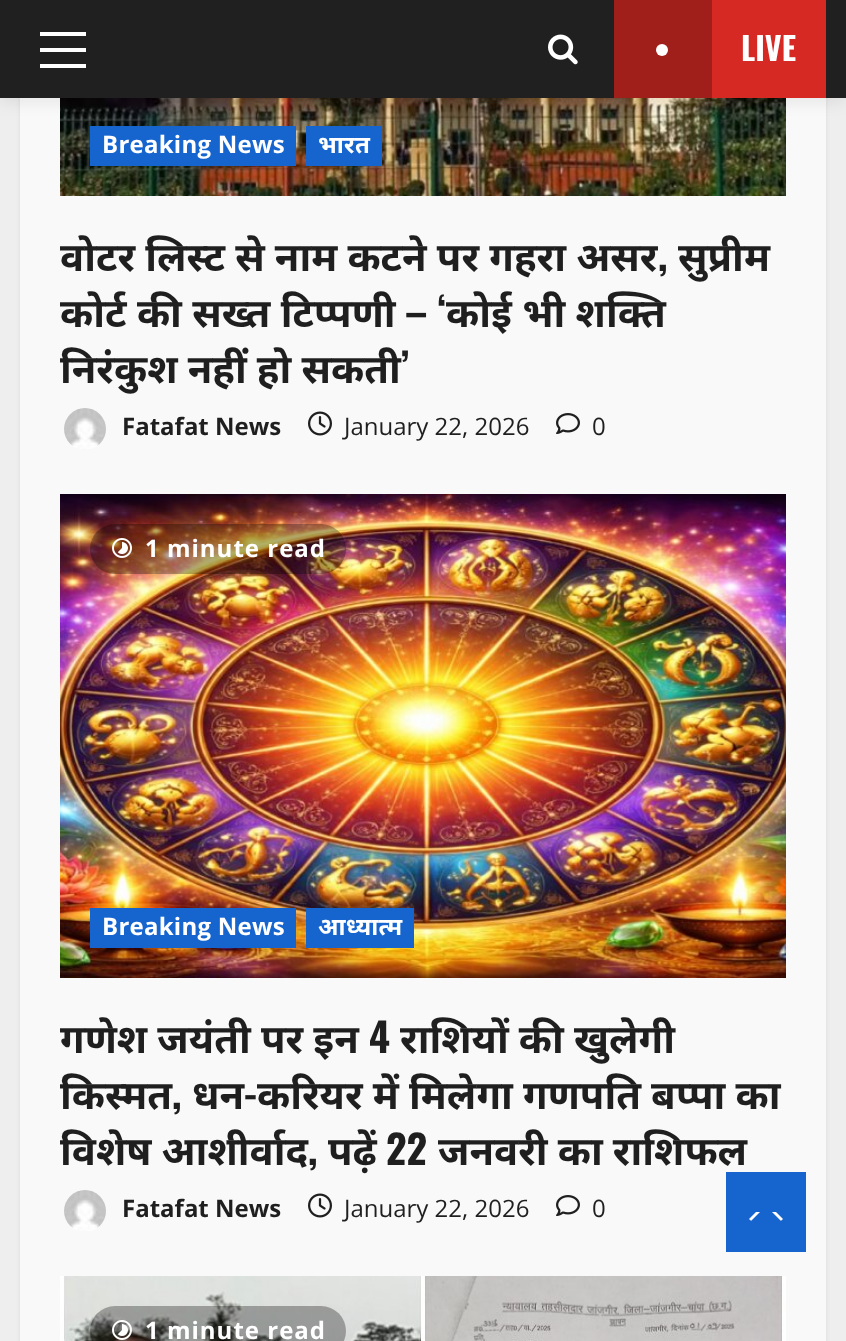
<svg xmlns="http://www.w3.org/2000/svg" width="846" height="1341">
	<rect width="100%" height="100%" fill="#EEEEEE" />
	<rect x="20" y="-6" width="806" height="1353" fill="#000000" fill-opacity="0.08" filter="blur(2px)" />
	<rect x="20" y="98" width="806" height="1243" fill="#F9F9F9" />
	<image x="60" y="98" width="726" height="98" href="assets/img2.png" />
	<rect x="90" y="126" width="206" height="40" fill="#1665CF" />
	<rect x="306" y="126" width="76" height="40" fill="#1665CF" />
	<rect x="0" y="4" width="846" height="98" fill="#000000" fill-opacity="0.08" filter="blur(8px)" />
	<rect x="0" y="0" width="846" height="98" fill="#202020" />
	<rect x="40" y="48" width="46" height="4" fill="#FFFFFF" />
	<rect x="40" y="32" width="46" height="4" fill="#FFFFFF" />
	<rect x="40" y="64" width="46" height="4" fill="#FFFFFF" />
	<image x="548" y="34" width="30" height="31" href="assets/img1.png" />
	<rect x="712" y="0" width="114" height="98" fill="#D72924" />
	<rect x="614" y="0" width="98" height="98" fill="#A11F1B" />
	<circle cx="662" cy="50" r="6" fill="#FFFFFF" />
	<text x="741" y="61" font-family="Oswald" font-size="32" font-weight="700" fill="#FFFFFF">LIVE</text>
	<text x="102" y="153" font-family="Open Sans" font-size="24" font-weight="700" letter-spacing="0.25" fill="#FFFFFF">Breaking News</text>
	<text x="318" y="153" font-family="Noto Sans" font-size="24" font-weight="700" letter-spacing="0.25" fill="#FFFFFF">भारत</text>
	<text x="60" y="271" word-spacing="-0.25" font-family="Noto Sans" font-size="40" font-weight="700" fill="#1F1F1F">वोटर लिस्ट से नाम कटने पर गहरा असर</text>
	<text x="658" y="271" font-family="Oswald" font-size="40" font-weight="700" fill="#1F1F1F">,</text>
	<g font-family="Noto Sans" font-size="40" font-weight="700" fill="#1F1F1F">
		<text x="678" y="271">सुप्रीम</text>
		<text x="60" y="327">कोर्ट की सख्त टिप्पणी</text>
	</g>
	<text x="405" y="327" font-family="Oswald" font-size="40" font-weight="700" fill="#1F1F1F">– ‘</text>
	<g font-family="Noto Sans" font-size="40" font-weight="700" fill="#1F1F1F">
		<text x="446" y="327">कोई भी शक्ति</text>
		<text x="60" y="383" word-spacing="-0.25">निरंकुश नहीं हो सकती</text>
	</g>
	<text x="401" y="383" font-family="Oswald" font-size="40" font-weight="700" fill="#1F1F1F">’</text>
	<image x="64" y="408" width="42" height="41" href="assets/img3.png" />
	<text x="122" y="435" font-family="Open Sans" font-size="24" font-weight="700" fill="#1F1F1F">Fatafat News</text>
	<image x="308" y="411" width="24" height="25" href="assets/img4.png" />
	<text x="344" y="435" font-family="Open Sans" font-size="24" fill="#1F1F1F">January 22, 2026</text>
	<image x="556" y="413" width="24" height="21" href="assets/img5.png" />
	<text x="592" y="435" font-family="Open Sans" font-size="24" fill="#1F1F1F">0</text>
	<image x="60" y="494" width="726" height="484" href="assets/img6.png" />
	<rect x="90" y="524" width="256" height="50" rx="25" fill="#000000" fill-opacity="0.3" />
	<image x="112" y="538" width="20" height="20" href="assets/img7.png" />
	<text x="145" y="557" font-family="Open Sans" font-size="24" font-weight="700" letter-spacing="1" fill="#FFFFFF">1 minute read</text>
	<rect x="90" y="908" width="206" height="40" fill="#1665CF" />
	<text x="102" y="935" font-family="Open Sans" font-size="24" font-weight="700" letter-spacing="0.25" fill="#FFFFFF">Breaking News</text>
	<rect x="306" y="908" width="108" height="40" fill="#1665CF" />
	<text x="318" y="935" font-family="Noto Sans" font-size="24" font-weight="700" letter-spacing="0.25" fill="#FFFFFF">आध्यात्म</text>
	<text x="60" y="1053" word-spacing="-0.25" font-family="Noto Sans" font-size="40" font-weight="700" fill="#1F1F1F">गणेश जयंती पर इन</text>
	<text x="369" y="1053" font-family="Oswald" font-size="40" font-weight="700" fill="#1F1F1F">4</text>
	<g font-family="Noto Sans" font-size="40" font-weight="700" fill="#1F1F1F">
		<text x="400" y="1053" word-spacing="-0.25">राशियों की खुलेगी</text>
		<text x="60" y="1109">किस्मत</text>
		<text x="192" y="1109">धन</text>
	</g>
	<text x="244" y="1109" font-family="Oswald" font-size="40" font-weight="700" fill="#1F1F1F">-</text>
	<text x="257" y="1109" word-spacing="-0.25" font-family="Noto Sans" font-size="40" font-weight="700" fill="#1F1F1F">करियर में मिलेगा गणपति बप्पा का</text>
	<text x="172" y="1109" font-family="Oswald" font-size="40" font-weight="700" fill="#1F1F1F">,</text>
	<text x="60" y="1165" word-spacing="-0.25" font-family="Noto Sans" font-size="40" font-weight="700" fill="#1F1F1F">विशेष आशीर्वाद</text>
	<text x="308" y="1165" font-family="Oswald" font-size="40" font-weight="700" fill="#1F1F1F">,</text>
	<text x="328" y="1165" font-family="Noto Sans" font-size="40" font-weight="700" fill="#1F1F1F">पढ़ें</text>
	<text x="386" y="1165" font-family="Oswald" font-size="40" font-weight="700" fill="#1F1F1F">22</text>
	<text x="438" y="1165" word-spacing="-0.25" font-family="Noto Sans" font-size="40" font-weight="700" fill="#1F1F1F">जनवरी का राशिफल</text>
	<image x="64" y="1190" width="42" height="41" href="assets/img3.png" />
	<text x="122" y="1217" font-family="Open Sans" font-size="24" font-weight="700" fill="#1F1F1F">Fatafat News</text>
	<image x="308" y="1193" width="24" height="25" href="assets/img4.png" />
	<text x="344" y="1217" font-family="Open Sans" font-size="24" fill="#1F1F1F">January 22, 2026</text>
	<image x="556" y="1195" width="24" height="21" href="assets/img5.png" />
	<text x="592" y="1217" font-family="Open Sans" font-size="24" fill="#1F1F1F">0</text>
	<image x="60" y="1276" width="726" height="65" href="assets/img8.png" />
	<rect x="90" y="1306" width="256" height="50" rx="25" fill="#000000" fill-opacity="0.3" />
	<image x="112" y="1320" width="20" height="20" href="assets/img9.png" />
	<text x="145" y="1339" font-family="Open Sans" font-size="24" font-weight="700" letter-spacing="1" fill="#FFFFFF">1 minute read</text>
	<rect x="726" y="1172" width="80" height="80" fill="#1665CF" />
	<path d="M756 1222H776C779 1222 781.5 1221 783 1219L776 1212H756L749 1219C750.5 1221 753 1222 756 1222Z" fill="#FFFFFF" />
	<path d="M786 1226H746L766 1206Z" fill="#1665CF" />
</svg>
